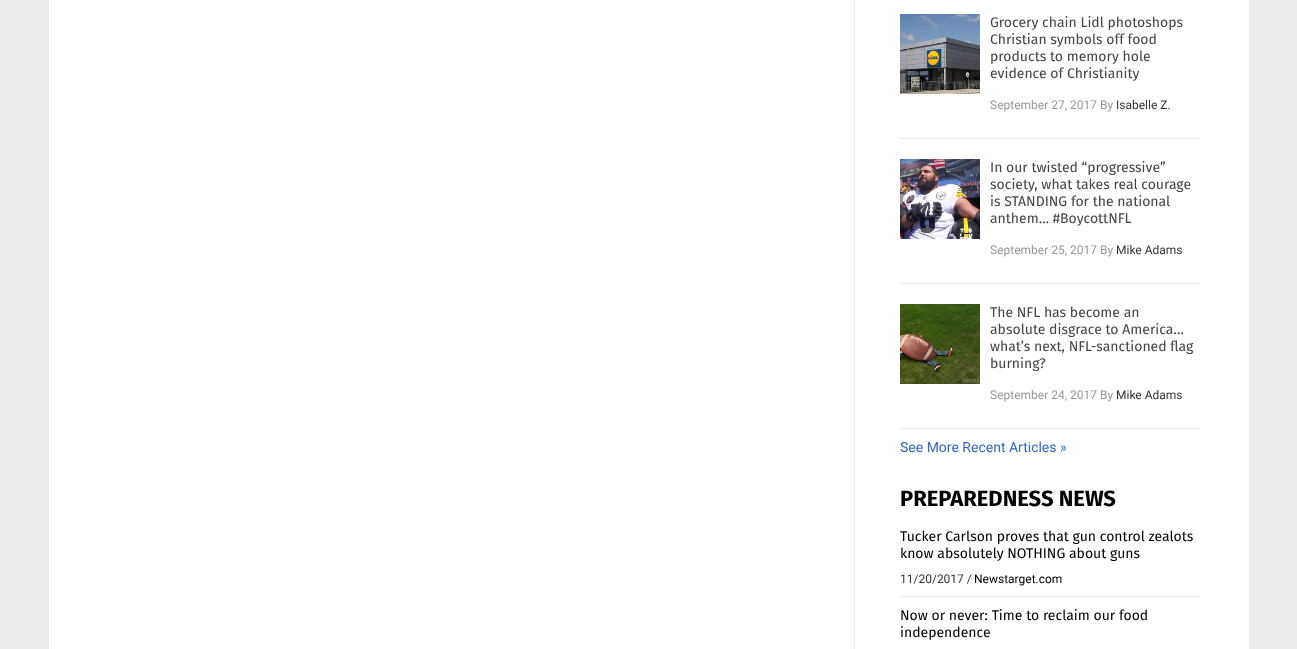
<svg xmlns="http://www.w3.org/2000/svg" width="1297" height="649">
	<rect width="100%" height="100%" fill="#ECECEC" />
	<rect x="49" y="0" width="1200" height="649" fill="#FFFFFF" />
	<rect x="854" y="0" width="1" height="649" fill="#ECECEC" />
	<rect x="900" y="138" width="300" height="1" fill="#ECECEC" />
	<image x="900" y="14" width="80" height="80" href="assets/img1.png" />
	<g font-family="Fira Sans" font-size="14" fill="#444444">
		<text x="990" y="27">Grocery chain Lidl photoshops</text>
		<text x="990" y="44">Christian symbols off food</text>
		<text x="990" y="61">products to memory hole</text>
		<text x="990" y="78">evidence of Christianity</text>
	</g>
	<text x="990" y="109" font-family="Roboto" font-size="12" fill="#999999">September 27, 2017 By</text>
	<text x="1116" y="109" font-family="Roboto" font-size="12" fill="#333333">Isabelle Z.</text>
	<rect x="900" y="283" width="300" height="1" fill="#ECECEC" />
	<image x="900" y="159" width="80" height="80" href="assets/img2.png" />
	<g font-family="Fira Sans" font-size="14" fill="#444444">
		<text x="990" y="172">In our twisted “progressive”</text>
		<text x="990" y="189">society, what takes real courage</text>
		<text x="990" y="206">is STANDING for the national</text>
		<text x="990" y="223">anthem… #BoycottNFL</text>
	</g>
	<text x="990" y="254" font-family="Roboto" font-size="12" fill="#999999">September 25, 2017 By</text>
	<text x="1116" y="254" font-family="Roboto" font-size="12" fill="#333333">Mike Adams</text>
	<rect x="900" y="428" width="300" height="1" fill="#ECECEC" />
	<image x="900" y="304" width="80" height="80" href="assets/img3.png" />
	<g font-family="Fira Sans" font-size="14" fill="#444444">
		<text x="990" y="317">The NFL has become an</text>
		<text x="990" y="334">absolute disgrace to America…</text>
		<text x="990" y="351">what’s next, NFL-sanctioned flag</text>
		<text x="990" y="368">burning?</text>
	</g>
	<text x="990" y="399" font-family="Roboto" font-size="12" fill="#999999">September 24, 2017 By</text>
	<text x="1116" y="399" font-family="Roboto" font-size="12" fill="#333333">Mike Adams</text>
	<text x="900" y="452" font-family="Roboto" font-size="14" fill="#3366CC">See More Recent Articles »</text>
	<text x="900" y="506" font-family="Fira Sans" font-size="22" font-weight="700" fill="#000000">PREPAREDNESS NEWS</text>
	<rect x="900" y="596" width="300" height="1" fill="#ECECEC" />
	<g font-family="Fira Sans" font-size="14" fill="#000000">
		<text x="900" y="541">Tucker Carlson proves that gun control zealots</text>
		<text x="900" y="558">know absolutely NOTHING about guns</text>
	</g>
	<text x="900" y="583" font-family="Roboto" font-size="12" fill="#333333">11/20/2017 /</text>
	<text x="974" y="583" font-family="Roboto" font-size="12" fill="#000000">Newstarget.com</text>
	<g font-family="Fira Sans" font-size="14" fill="#000000">
		<text x="900" y="620">Now or never: Time to reclaim our food</text>
		<text x="900" y="637">independence</text>
	</g>
</svg>
